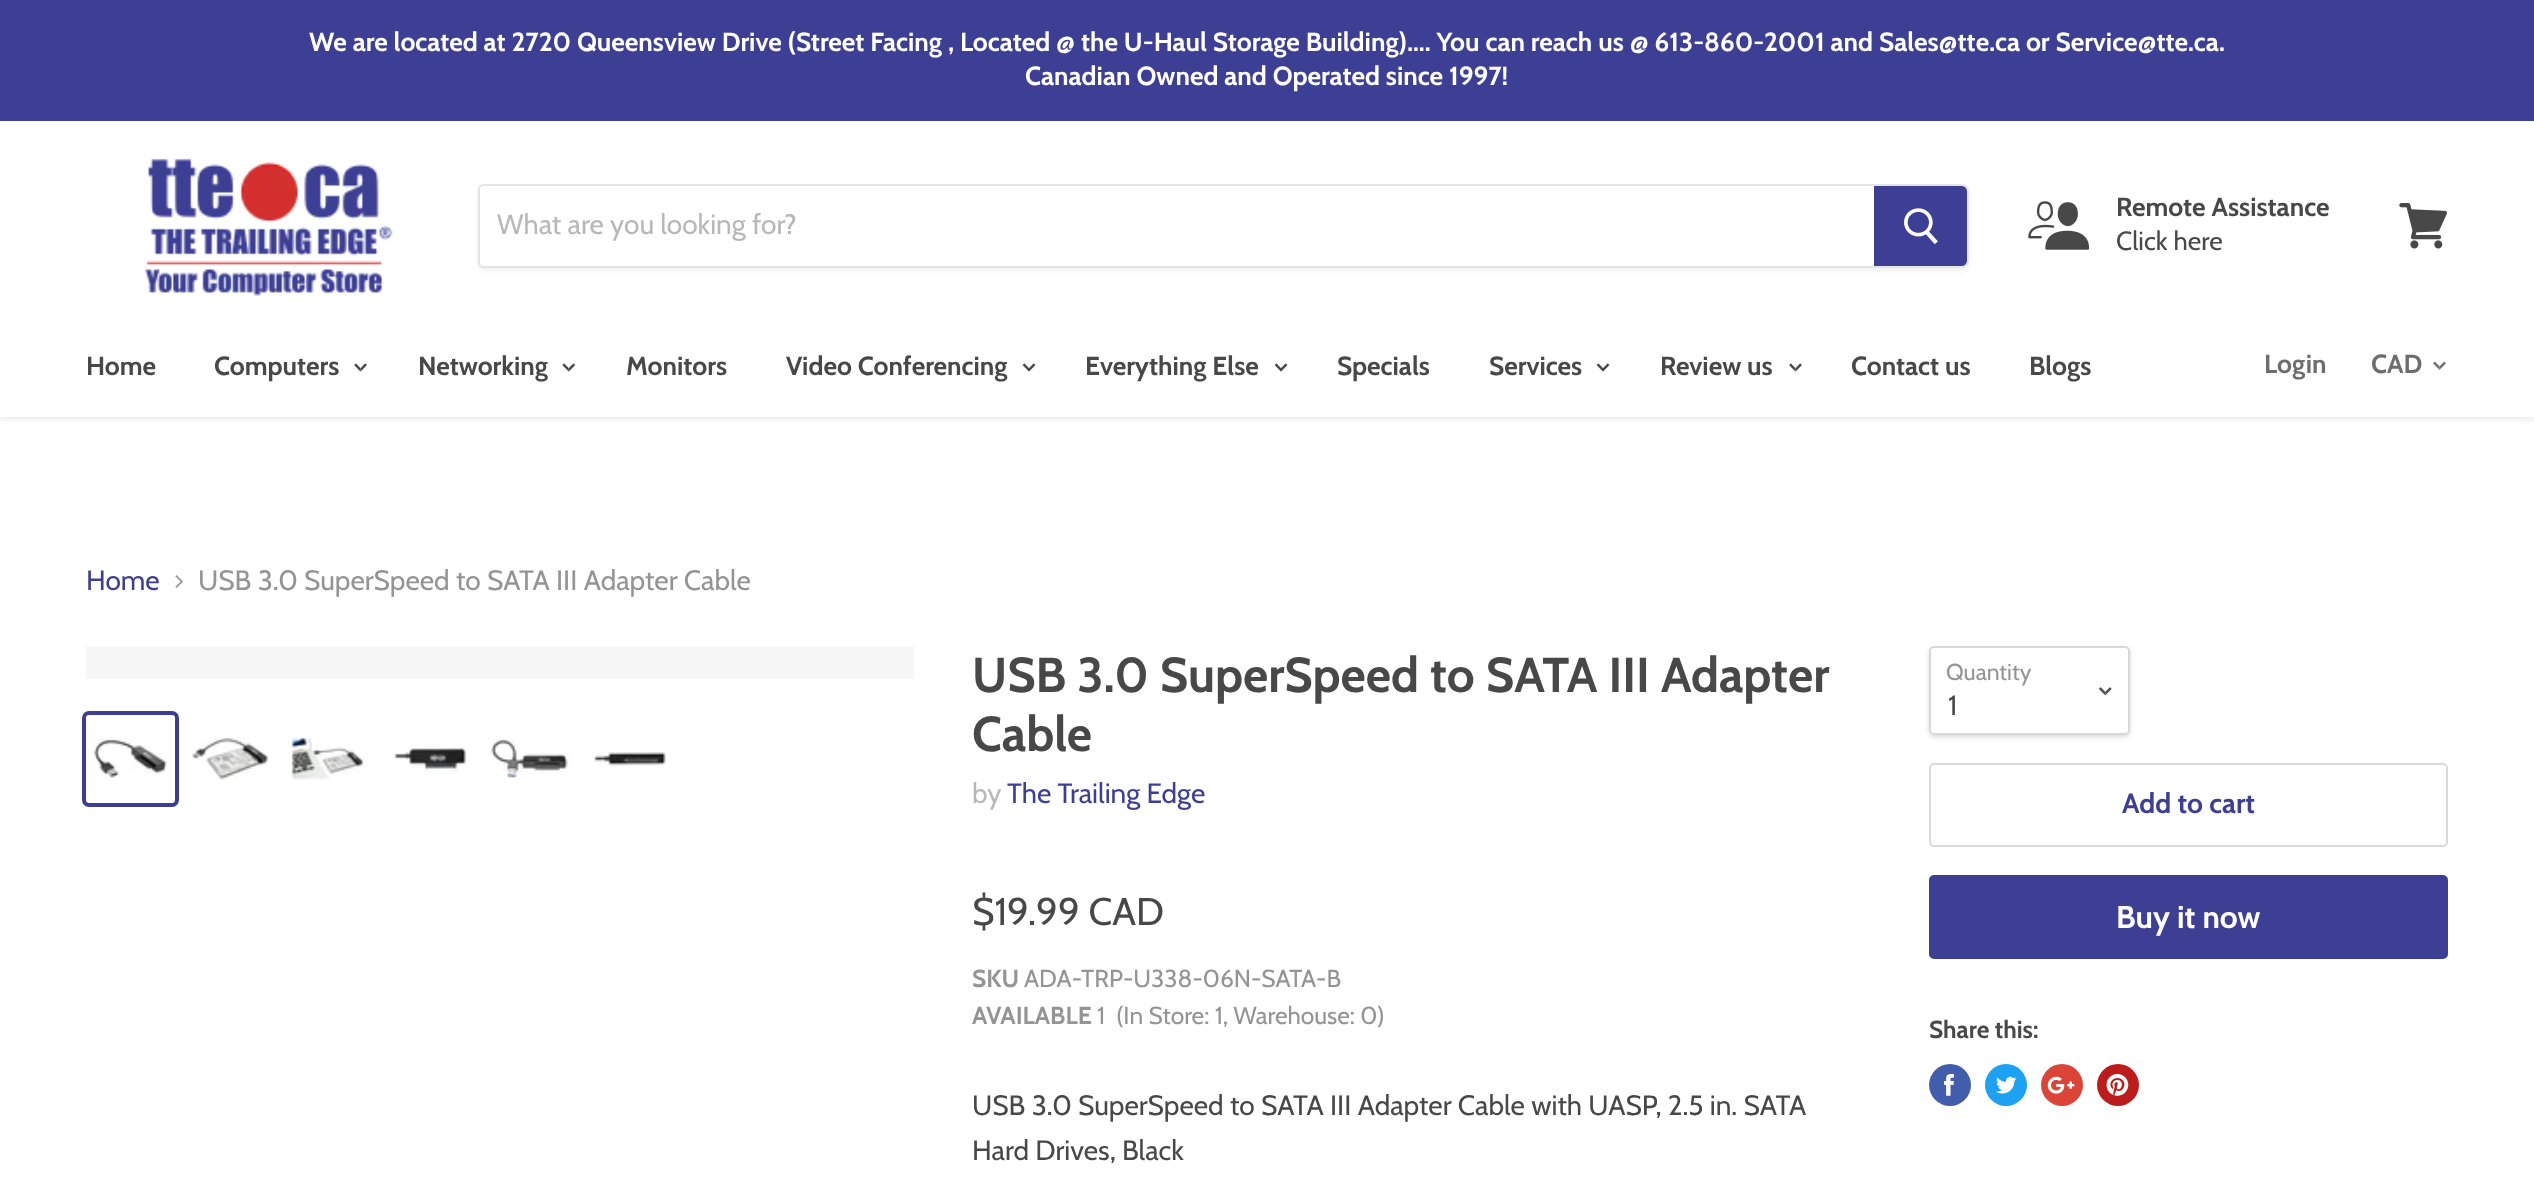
<svg xmlns="http://www.w3.org/2000/svg" width="2534" height="1190">
	<defs>
		<clipPath id="clip1"><path d="M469 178H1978V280H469ZM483 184H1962C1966 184 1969 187 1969 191V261C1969 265 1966 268 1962 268H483C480 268 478 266 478 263V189C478 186 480 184 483 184Z" clip-rule="evenodd" /></clipPath>
		<clipPath id="clip2"><path d="M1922 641H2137V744H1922ZM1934 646H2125C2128 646 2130 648 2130 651V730C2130 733 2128 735 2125 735H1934C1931 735 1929 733 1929 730V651C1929 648 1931 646 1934 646Z" clip-rule="evenodd" /></clipPath>
	</defs>
	<rect width="100%" height="100%" fill="#FFFFFF" />
	<rect x="0" y="2" width="2534" height="416" fill="#7F7F7F" fill-opacity="0.25" filter="blur(3.5px)" />
	<rect x="0" y="121" width="2534" height="296" fill="#FFFFFF" />
	<rect x="0" y="0" width="2534" height="121" fill="#3D3F95" />
	<g font-family="Cabin" font-size="26.25" font-weight="700" fill="#FFFFFF">
		<text x="309" y="51">We are located at 2720 Queensview Drive (Street Facing , Located @ the U-Haul Storage Building).... You can reach us @ 613-860-2001 and Sales@tte.ca or Service@tte.ca.</text>
		<text x="1025" y="85">Canadian Owned and Operated since 1997!</text>
	</g>
	<image x="144" y="158" width="249" height="138" href="assets/img1.png" />
	<g clip-path="url(#clip1)">
		<rect x="478" y="187" width="1491" height="84" rx="7" fill="#7F7F7F" fill-opacity="0.11" filter="blur(2.5px)" />
	</g>
	<path d="M483 185H1962C1965.5 185 1968 187.5 1968 191V261C1968 264.5 1965.5 267 1962 267H483C481 267 479 265 479 263V189C479 187 481 185 483 185Z" fill="none" stroke="#7F7F7F" stroke-opacity="0.2" stroke-width="2" />
	<text x="497" y="234" font-family="Cabin" font-size="28" fill="#B8B8B8">What are you looking for?</text>
	<path d="M1875 187H1962C1964 187 1966 189 1966 191V261C1966 263 1964 265 1962 265H1875Z" fill="#3D3F95" stroke="#3D3F95" stroke-width="2" />
	<image x="1904" y="208" width="34" height="37" href="assets/img2.png" />
	<image x="2028" y="201" width="62" height="49" href="assets/img3.png" />
	<text x="2116" y="216" font-family="Cabin" font-size="26.25" font-weight="700" fill="#484848">Remote Assistance</text>
	<text x="2116" y="250" font-family="Cabin" font-size="26.25" fill="#484848">Click here</text>
	<image x="2399" y="203" width="48" height="46" href="assets/img4.png" />
	<g font-family="Cabin" font-size="26.25" font-weight="700" fill="#484848">
		<text x="86" y="375">Home</text>
		<text x="214" y="375">Computers</text>
	</g>
	<image x="354" y="363" width="13" height="9" href="assets/img5.png" />
	<text x="418" y="375" font-family="Cabin" font-size="26.25" font-weight="700" fill="#484848">Networking</text>
	<image x="562" y="363" width="14" height="9" href="assets/img6.png" />
	<g font-family="Cabin" font-size="26.25" font-weight="700" fill="#484848">
		<text x="626" y="375">Monitors</text>
		<text x="786" y="375">Video Conferencing</text>
	</g>
	<image x="1022" y="363" width="14" height="9" href="assets/img7.png" />
	<text x="1085" y="375" font-family="Cabin" font-size="26.25" font-weight="700" fill="#484848">Everything Else</text>
	<image x="1274" y="363" width="14" height="9" href="assets/img7.png" />
	<g font-family="Cabin" font-size="26.25" font-weight="700" fill="#484848">
		<text x="1337" y="375">Specials</text>
		<text x="1489" y="375">Services</text>
	</g>
	<image x="1596" y="363" width="14" height="9" href="assets/img7.png" />
	<text x="1660" y="375" font-family="Cabin" font-size="26.25" font-weight="700" fill="#484848">Review us</text>
	<image x="1789" y="363" width="13" height="9" href="assets/img5.png" />
	<g font-family="Cabin" font-size="26.25" font-weight="700" fill="#484848">
		<text x="1851" y="375">Contact us</text>
		<text x="2029" y="375">Blogs</text>
	</g>
	<g font-family="Cabin" font-size="26.25" font-weight="700" fill="#6D6D6D">
		<text x="2264" y="373">Login</text>
		<text x="2371" y="373">CAD</text>
	</g>
	<image x="2433" y="361" width="13" height="9" href="assets/img8.png" />
	<text x="86" y="590" font-family="Cabin" font-size="28" fill="#3D3F95">Home</text>
	<image x="175" y="575" width="8" height="13" href="assets/img9.png" />
	<text x="198" y="590" font-family="Cabin" font-size="28" fill="#949494">USB 3.0 SuperSpeed to SATA III Adapter Cable</text>
	<rect x="86" y="646" width="828" height="33" fill="#F7F7F7" />
	<rect x="84" y="713" width="93" height="92" rx="5" fill="none" stroke="#3D3F95" stroke-width="4" />
	<image x="92" y="739" width="75" height="39" href="assets/img10.png" />
	<image x="192" y="738" width="79" height="42" href="assets/img11.png" />
	<image x="289" y="737" width="75" height="43" href="assets/img12.png" />
	<image x="393" y="747" width="73" height="26" href="assets/img13.png" />
	<image x="488" y="739" width="83" height="39" href="assets/img14.png" />
	<image x="594" y="752" width="72" height="14" href="assets/img15.png" />
	<g font-family="Cabin" font-size="49" font-weight="700" fill="#484848">
		<text x="972" y="692">USB 3.0 SuperSpeed to SATA III Adapter</text>
		<text x="972" y="751">Cable</text>
	</g>
	<text x="972" y="803" font-family="Cabin" font-size="28" fill="#B8B8B8">by</text>
	<text x="1007" y="803" font-family="Cabin" font-size="28" fill="#3D3F95">The Trailing Edge</text>
	<text x="972" y="925" font-family="Cabin" font-size="38.5" fill="#484848">$19.99 CAD</text>
	<text x="972" y="987" font-family="Cabin" font-size="24.5" font-weight="700" fill="#949494">SKU</text>
	<text x="1024" y="987" font-family="Cabin" font-size="24.5" fill="#949494">ADA-TRP-U338-06N-SATA-B</text>
	<text x="972" y="1024" font-family="Cabin" font-size="24.5" font-weight="700" fill="#949494">AVAILABLE</text>
	<g font-family="Cabin" font-size="24.5" fill="#949494">
		<text x="1097" y="1024">1</text>
		<text x="1116" y="1024">(In Store: 1, Warehouse: 0</text>
		<text x="1377" y="1024">)</text>
	</g>
	<g font-family="Cabin" font-size="28" fill="#484848">
		<text x="972" y="1115">USB 3.0 SuperSpeed to SATA III Adapter Cable with UASP, 2.5 in. SATA</text>
		<text x="972" y="1160">Hard Drives, Black</text>
	</g>
	<g clip-path="url(#clip2)">
		<rect x="1929" y="648" width="201" height="89" rx="5" fill="#000000" fill-opacity="0.15" filter="blur(2px)" />
	</g>
	<rect x="1930" y="647" width="199" height="87" rx="4" fill="none" stroke="#7F7F7F" stroke-opacity="0.3" stroke-width="2" />
	<text x="1946" y="680" font-family="Cabin" font-size="23" fill="#949494">Quantity</text>
	<image x="2098" y="687" width="14" height="9" href="assets/img16.png" />
	<text x="1948" y="715" font-family="Cabin" font-size="28" fill="#484848">1</text>
	<rect x="1930" y="764" width="517" height="82" rx="4" fill="none" stroke="#D9D9D9" stroke-width="2" />
	<text x="2122" y="813" font-family="Cabin" font-size="28" font-weight="700" fill="#3D3F95">Add to cart</text>
	<rect x="1930" y="876" width="517" height="82" rx="4" fill="#3D3F95" stroke="#3D3F95" stroke-width="2" />
	<text x="2116" y="928" font-family="Cabin" font-size="31.5" font-weight="700" fill="#FFFFFF">Buy it now</text>
	<text x="1929" y="1038" font-family="Cabin" font-size="24.5" font-weight="700" fill="#484848">Share this:</text>
	<circle cx="1950" cy="1085" r="21" fill="#425DAB" />
	<image x="1944" y="1074" width="10" height="22" href="assets/img17.png" />
	<circle cx="2006" cy="1085" r="21" fill="#1DA1F2" />
	<image x="1996" y="1076" width="21" height="18" href="assets/img18.png" />
	<circle cx="2062" cy="1085" r="21" fill="#DB4437" />
	<image x="2047" y="1076" width="28" height="18" href="assets/img19.png" />
	<circle cx="2118" cy="1085" r="21" fill="#BD1C1C" />
	<image x="2106" y="1074" width="23" height="22" href="assets/img20.png" />
</svg>
